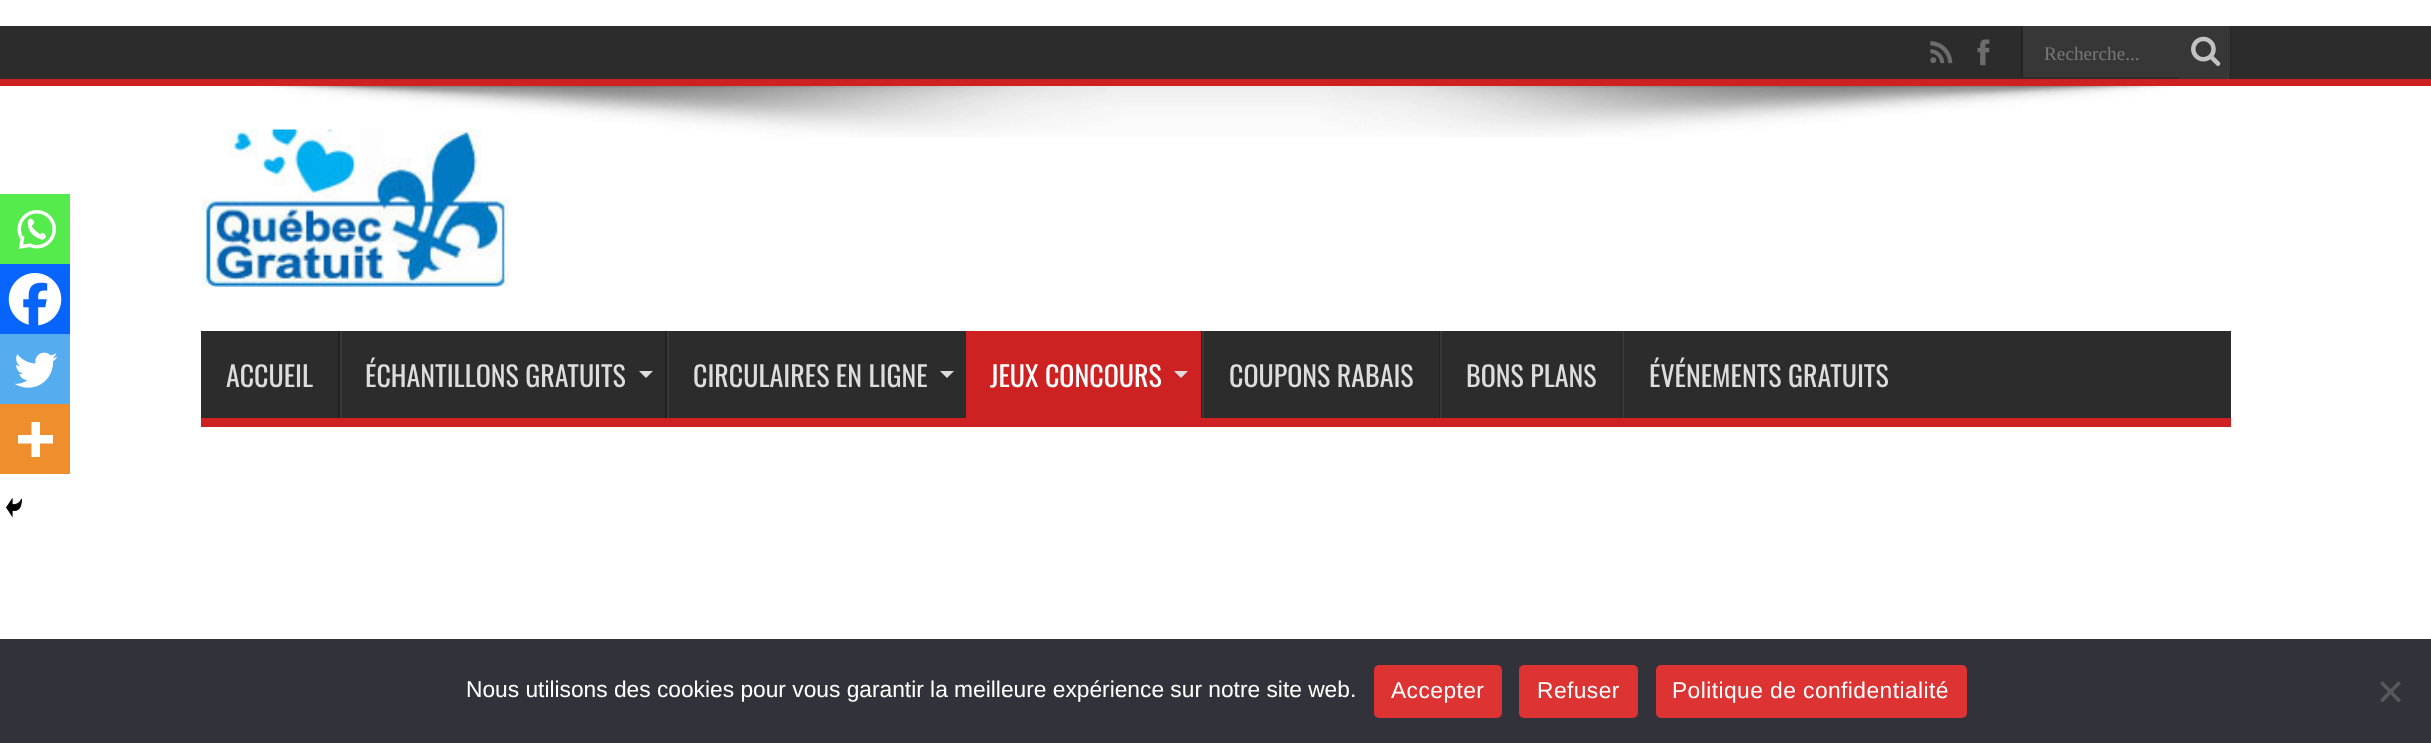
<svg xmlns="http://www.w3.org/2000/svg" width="2431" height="743">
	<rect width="100%" height="100%" fill="#FFFFFF" />
	<rect x="0" y="26" width="2431" height="53" fill="#2C2C2C" />
	<rect x="0" y="79" width="2431" height="7" fill="#CD2122" />
	<image x="1930" y="41" width="23" height="23" href="assets/img1.png" />
	<image x="1977" y="39" width="13" height="27" href="assets/img2.png" />
	<rect x="2023" y="26" width="156" height="51" fill="#373737" />
	<rect x="2021" y="26" width="2" height="51" fill="#252525" />
	<text x="2044" y="60" font-family="Liberation Serif" font-size="19.25" fill="#787878">Recherche...</text>
	<rect x="2179" y="26" width="51" height="53" fill="#373737" />
	<rect x="2230" y="26" width="1" height="53" fill="#252525" />
	<image x="2191" y="36" width="30" height="30" href="assets/img3.png" />
	<rect x="0" y="194" width="70" height="70" fill="#55EB4C" />
	<image x="17" y="210" width="39" height="39" href="assets/img4.png" />
	<rect x="0" y="264" width="70" height="70" fill="#0765FE" />
	<image x="8" y="273" width="54" height="53" href="assets/img5.png" />
	<rect x="0" y="334" width="70" height="70" fill="#55ACEE" />
	<image x="14" y="352" width="44" height="36" href="assets/img6.png" />
	<rect x="0" y="404" width="70" height="70" fill="#EE8E2D" />
	<path d="M40 435V422H31.5V435H18V443.5H31.5V457H40V443.5H53V435Z" fill="#FFFFFF" fill-rule="evenodd" />
	<image x="6" y="497" width="16" height="21" href="assets/img7.png" />
	<image x="263" y="86" width="1913" height="51" href="assets/img8.png" />
	<image x="201" y="129" width="309" height="158" href="assets/img9.png" />
	<rect x="201" y="331" width="2030" height="87" fill="#2C2C2C" />
	<rect x="201" y="418" width="2030" height="9" fill="#CD2122" />
	<text x="226" y="387" font-family="Oswald" font-size="28" fill="#DDDDDD">ACCUEIL</text>
	<rect x="338" y="331" width="2" height="87" fill="#222222" />
	<rect x="340" y="331" width="2" height="87" fill="#383838" />
	<text x="365" y="387" font-family="Oswald" font-size="28" fill="#DDDDDD">ÉCHANTILLONS GRATUITS</text>
	<path d="M639 371H653L646 378Z" fill="#DDDDDD" />
	<rect x="665" y="331" width="2" height="87" fill="#222222" />
	<rect x="667" y="331" width="2" height="87" fill="#383838" />
	<text x="693" y="387" font-family="Oswald" font-size="28" fill="#DDDDDD">CIRCULAIRES EN LIGNE</text>
	<path d="M940 371H954L947 378Z" fill="#DDDDDD" />
	<rect x="966" y="331" width="235" height="87" fill="#CD2122" />
	<text x="990" y="387" font-family="Oswald" font-size="28" fill="#FFFFFF">JEUX CONCOURS</text>
	<path d="M1174 371H1188L1181 378Z" fill="#DDDDDD" />
	<rect x="1201" y="331" width="1" height="87" fill="#222222" />
	<rect x="1202" y="331" width="2" height="87" fill="#383838" />
	<text x="1229" y="387" font-family="Oswald" font-size="28" fill="#DDDDDD">COUPONS RABAIS</text>
	<rect x="1439" y="331" width="1" height="87" fill="#222222" />
	<rect x="1440" y="331" width="2" height="87" fill="#383838" />
	<text x="1466" y="387" font-family="Oswald" font-size="28" fill="#DDDDDD">BONS PLANS</text>
	<rect x="1621" y="331" width="1" height="87" fill="#222222" />
	<rect x="1622" y="331" width="2" height="87" fill="#383838" />
	<text x="1649" y="387" font-family="Oswald" font-size="28" fill="#DDDDDD">ÉVÉNEMENTS GRATUITS</text>
	<rect x="0" y="639" width="2431" height="104" fill="#32323A" />
	<text x="466" y="697" font-family="Liberation Sans" font-size="22.75" fill="#FFFFFF">Nous utilisons des cookies pour vous garantir la meilleure expérience sur notre site web.</text>
	<rect x="1374" y="665" width="128" height="53" rx="5" fill="#DD3333" />
	<text x="1391" y="698" font-family="Liberation Sans" font-size="22.75" letter-spacing="0.45" fill="#FFFFFF">Accepter</text>
	<rect x="1519" y="665" width="119" height="53" rx="5" fill="#DD3333" />
	<text x="1537" y="698" font-family="Liberation Sans" font-size="22.75" letter-spacing="0.45" fill="#FFFFFF">Refuser</text>
	<rect x="1656" y="665" width="311" height="53" rx="5" fill="#DD3333" />
	<text x="1672" y="698" font-family="Liberation Sans" font-size="22.75" letter-spacing="0.45" fill="#FFFFFF">Politique de confidentialité</text>
	<path d="M2398.5 681L2401 683.5L2382.5 702.5L2380 700Z" fill="#59595D" />
	<path d="M2380 683.5L2382.5 681L2401 700L2398.5 702.5Z" fill="#59595D" />
</svg>
